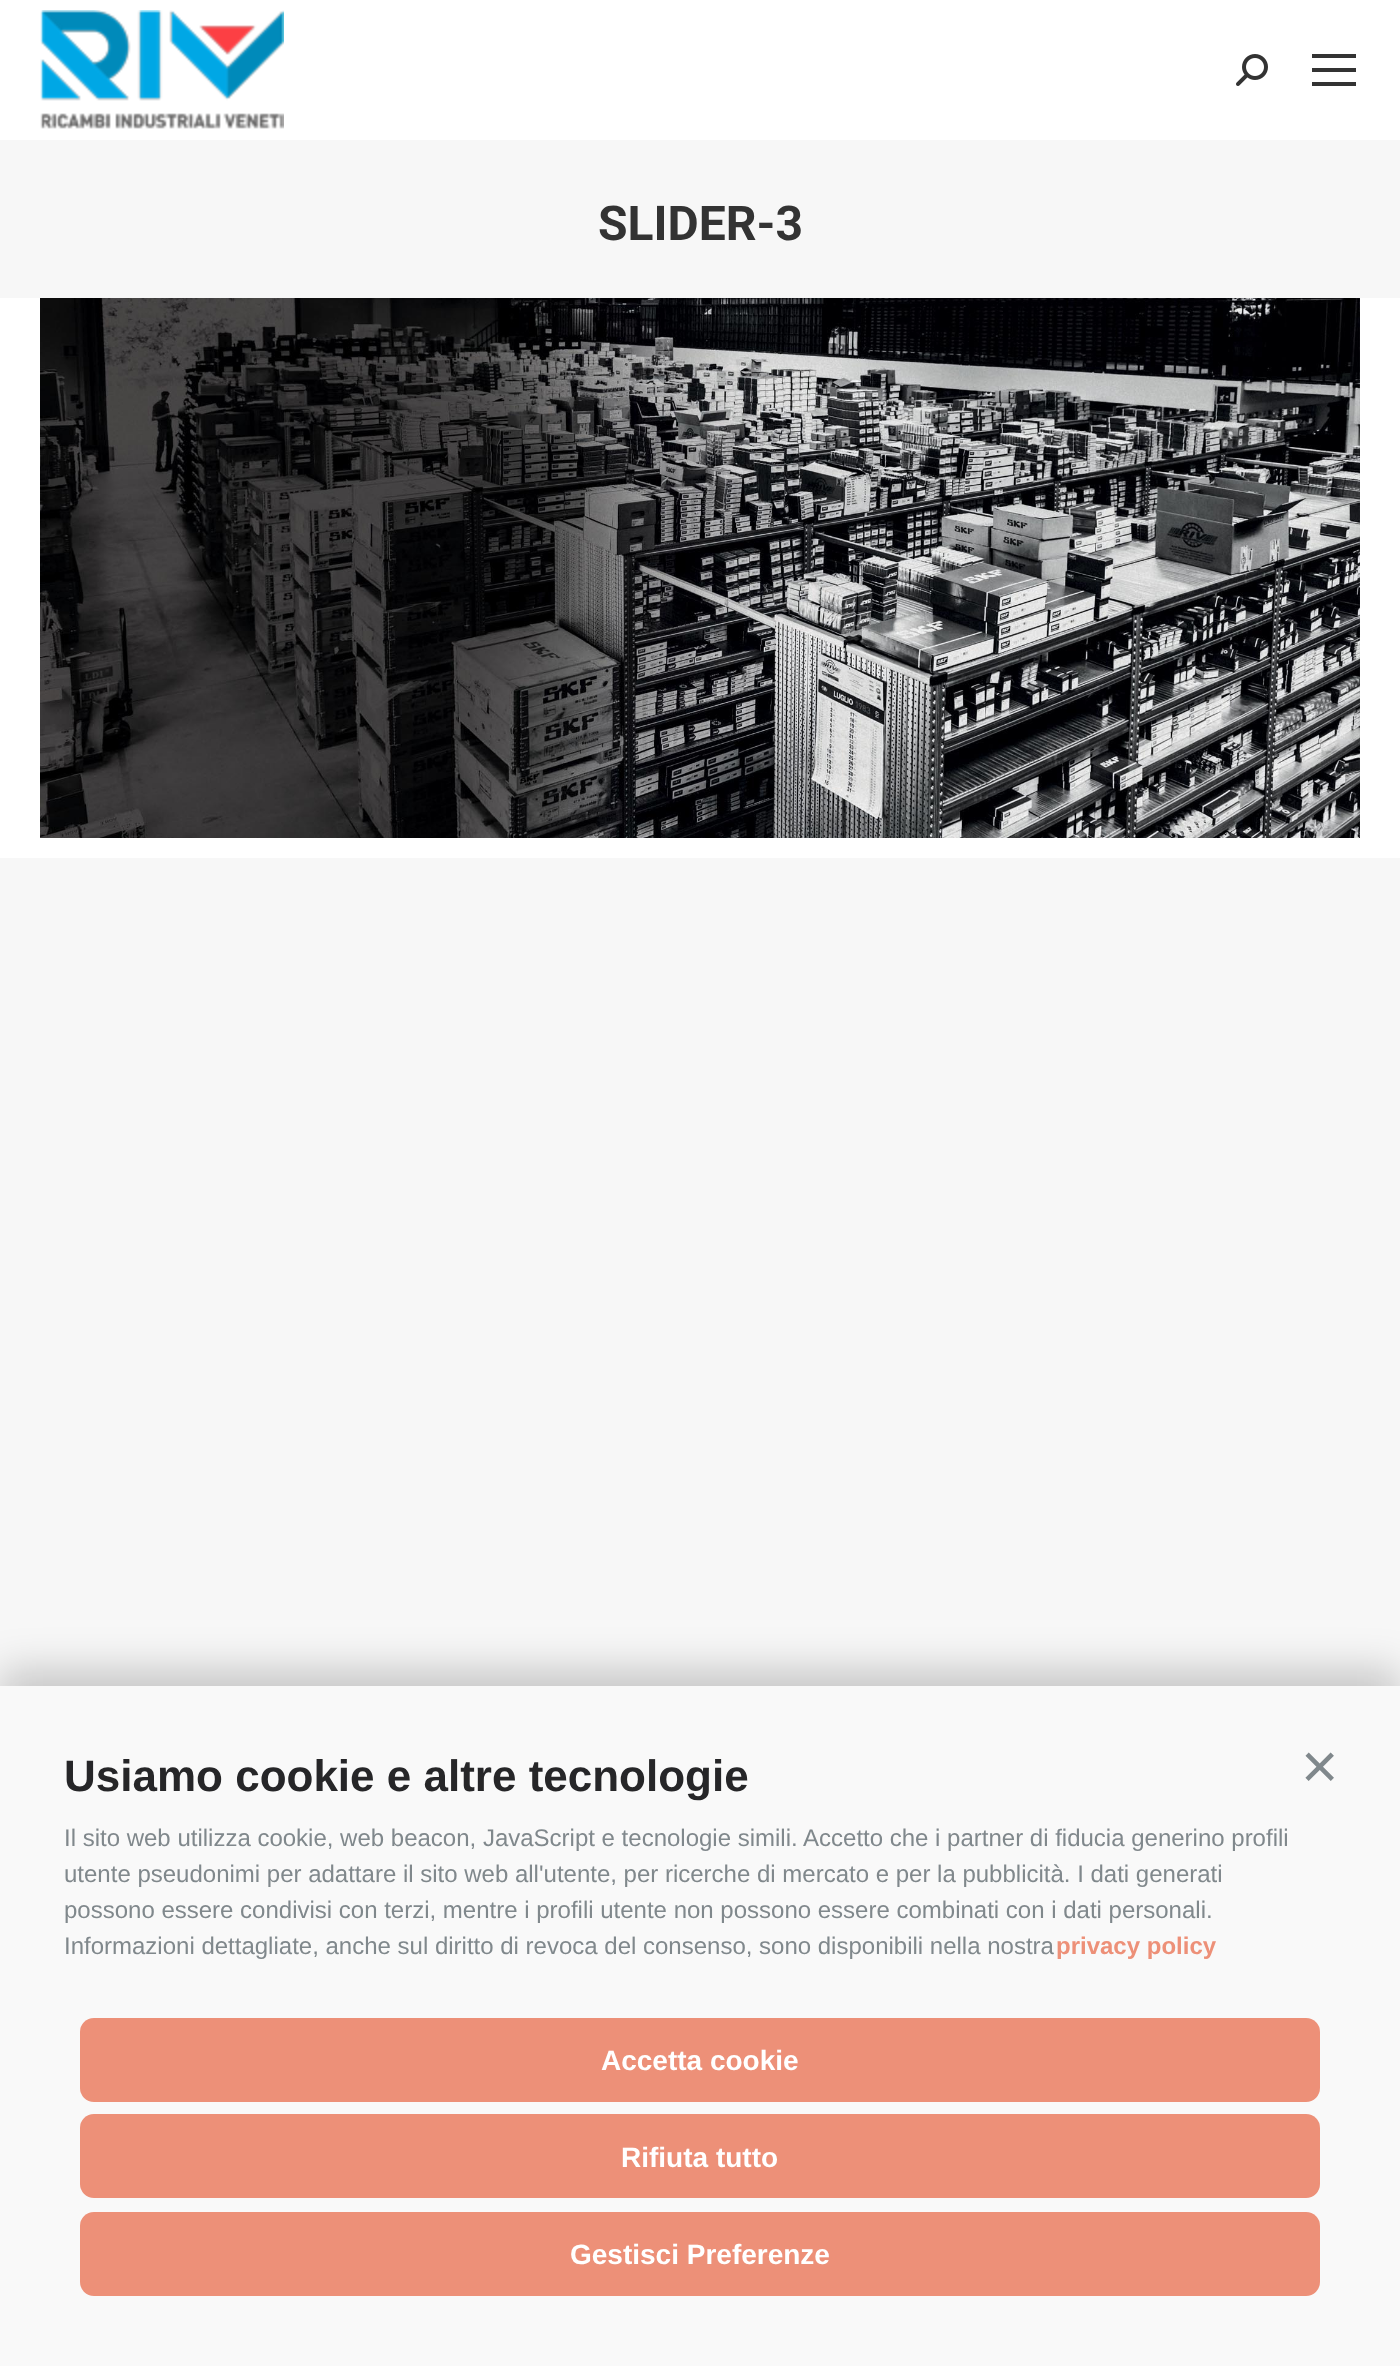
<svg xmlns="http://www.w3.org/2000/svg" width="1400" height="2366">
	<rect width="100%" height="100%" fill="#F7F7F7" />
	<rect x="0" y="0" width="1400" height="858" fill="#FFFFFF" />
	<image x="40" y="10" width="244" height="119" href="assets/img1.png" />
	<image x="1236" y="54" width="32" height="32" href="assets/img2.png" />
	<rect x="1312" y="54" width="44" height="4" fill="#333333" />
	<rect x="1312" y="68" width="44" height="4" fill="#333333" />
	<rect x="1312" y="82" width="44" height="4" fill="#333333" />
	<rect x="0" y="140" width="1400" height="158" fill="#F7F7F7" />
	<text x="598" y="240" font-family="Roboto" font-size="48" font-weight="700" fill="#333333">SLIDER-3</text>
	<image x="40" y="298" width="1320" height="540" href="assets/img3.png" />
	<rect x="0" y="1670" width="1400" height="680" fill="#000000" fill-opacity="0.2" filter="blur(20px)" />
	<rect x="0" y="1686" width="1400" height="680" fill="#F9F9F9" />
	<text x="64" y="1791" font-family="Liberation Sans" font-size="44" font-weight="700" fill="#262628">Usiamo cookie e altre tecnologie</text>
	<text x="1301" y="1788" font-family="Liberation Sans" font-size="64" fill="#80888C">×</text>
	<g font-family="Liberation Sans" font-size="24" fill="#80888C">
		<text x="64" y="1846">Il sito web utilizza cookie, web beacon, JavaScript e tecnologie simili. Accetto che i partner di fiducia generino profili</text>
		<text x="64" y="1882">utente pseudonimi per adattare il sito web all'utente, per ricerche di mercato e per la pubblicità. I dati generati</text>
		<text x="64" y="1918">possono essere condivisi con terzi, mentre i profili utente non possono essere combinati con i dati personali.</text>
		<text x="64" y="1954">Informazioni dettagliate, anche sul diritto di revoca del consenso, sono disponibili nella nostra</text>
	</g>
	<text x="1056" y="1954" font-family="Liberation Sans" font-size="24" font-weight="700" fill="#ED9078">privacy policy</text>
	<rect x="80" y="2018" width="1240" height="84" rx="14" fill="#ED9078" />
	<text x="601" y="2070" font-family="Liberation Sans" font-size="28" font-weight="700" fill="#FFFFFF">Accetta cookie</text>
	<rect x="80" y="2114" width="1240" height="84" rx="14" fill="#ED9078" />
	<text x="621" y="2167" font-family="Liberation Sans" font-size="28" font-weight="700" fill="#FFFFFF">Rifiuta tutto</text>
	<rect x="80" y="2212" width="1240" height="84" rx="14" fill="#ED9078" />
	<text x="570" y="2264" font-family="Liberation Sans" font-size="28" font-weight="700" fill="#FFFFFF">Gestisci Preferenze</text>
</svg>
